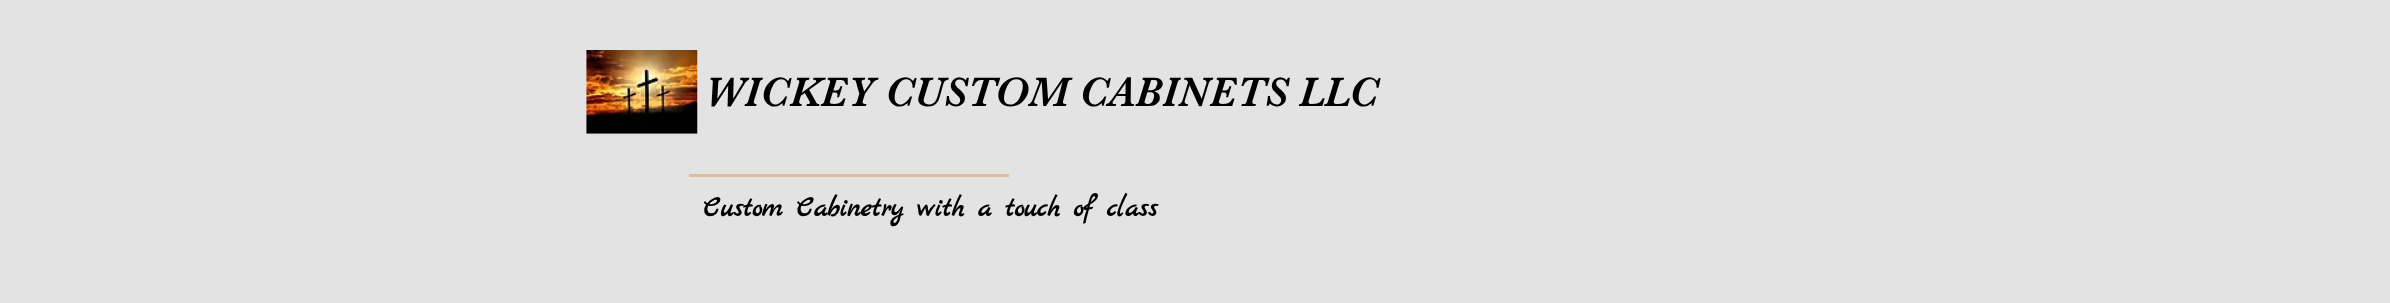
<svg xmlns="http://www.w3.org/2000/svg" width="2390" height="303">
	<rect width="100%" height="100%" fill="#E3E3E3" />
	<image x="586" y="50" width="112" height="84" href="assets/img1.png" />
	<text x="705" y="106" font-family="'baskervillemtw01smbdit'" font-size="42.5" fill="#000000">WICKEY CUSTOM CABINETS LLC</text>
	<rect x="689" y="174" width="320" height="3" fill="#DDBF9B" />
	<text x="703" y="216" font-family="Marck Script" font-size="28.75" font-weight="700" fill="#000000">Custom Cabinetry with a touch of class</text>
</svg>
